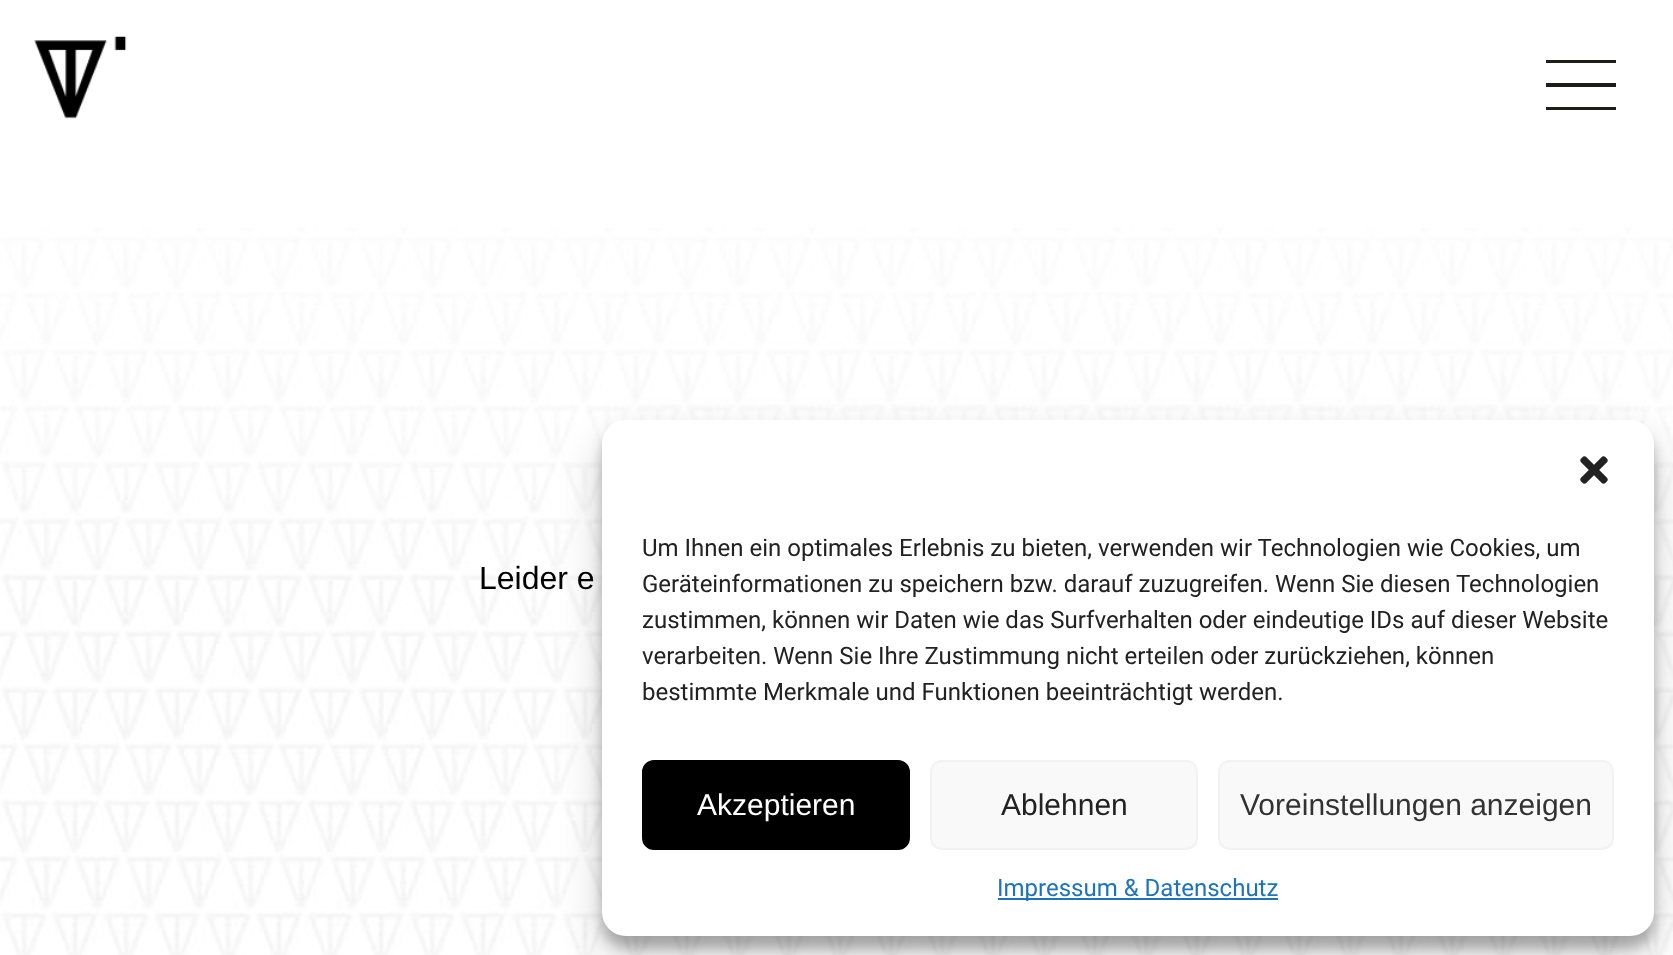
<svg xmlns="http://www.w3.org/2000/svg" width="1673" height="955">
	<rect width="100%" height="100%" fill="#FFFFFF" />
	<image x="34" y="36" width="93" height="83" href="assets/img1.png" />
	<rect x="1546" y="60" width="70" height="3" fill="#1D1D1B" />
	<rect x="1546" y="83" width="70" height="4" fill="#1D1D1B" />
	<rect x="1546" y="107" width="70" height="3" fill="#1D1D1B" />
	<image x="0" y="228" width="1673" height="727" href="assets/img2.png" />
	<text x="479" y="589" font-family="Liberation Sans" font-size="32" fill="#000000">Leider e</text>
	<rect x="602" y="432" width="1052" height="516" rx="24" fill="#000000" fill-opacity="0.23" filter="blur(6px)" />
	<rect x="602" y="440" width="1052" height="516" rx="24" fill="#000000" fill-opacity="0.19" filter="blur(20px)" />
	<rect x="602" y="420" width="1052" height="516" rx="24" fill="#FFFFFF" />
	<image x="1580" y="456" width="28" height="28" href="assets/img3.png" />
	<g font-family="Roboto" font-size="24" fill="#222222">
		<text x="642" y="556">Um Ihnen ein optimales Erlebnis zu bieten, verwenden wir Technologien wie Cookies, um</text>
		<text x="642" y="592">Geräteinformationen zu speichern bzw. darauf zuzugreifen. Wenn Sie diesen Technologien</text>
		<text x="642" y="628">zustimmen, können wir Daten wie das Surfverhalten oder eindeutige IDs auf dieser Website</text>
		<text x="642" y="664">verarbeiten. Wenn Sie Ihre Zustimmung nicht erteilen oder zurückziehen, können</text>
		<text x="642" y="700">bestimmte Merkmale und Funktionen beeinträchtigt werden.</text>
	</g>
	<rect x="643" y="761" width="266" height="88" rx="11" fill="#000000" stroke="#000000" stroke-width="2" />
	<text x="697" y="815" font-family="Liberation Sans" font-size="30" fill="#FFFFFF">Akzeptieren</text>
	<rect x="931" y="761" width="266" height="88" rx="11" fill="#F9F9F9" stroke="#F2F2F2" stroke-width="2" />
	<text x="1001" y="815" font-family="Liberation Sans" font-size="30" fill="#222222">Ablehnen</text>
	<rect x="1219" y="761" width="394" height="88" rx="11" fill="#F9F9F9" stroke="#F2F2F2" stroke-width="2" />
	<text x="1240" y="815" font-family="Liberation Sans" font-size="30" fill="#333333">Voreinstellungen anzeigen</text>
	<rect x="998" y="898" width="280" height="2" fill="#1E73BE" />
	<text x="997" y="896" font-family="Roboto" font-size="24" fill="#1E73BE">Impressum &amp; Datenschutz</text>
</svg>
